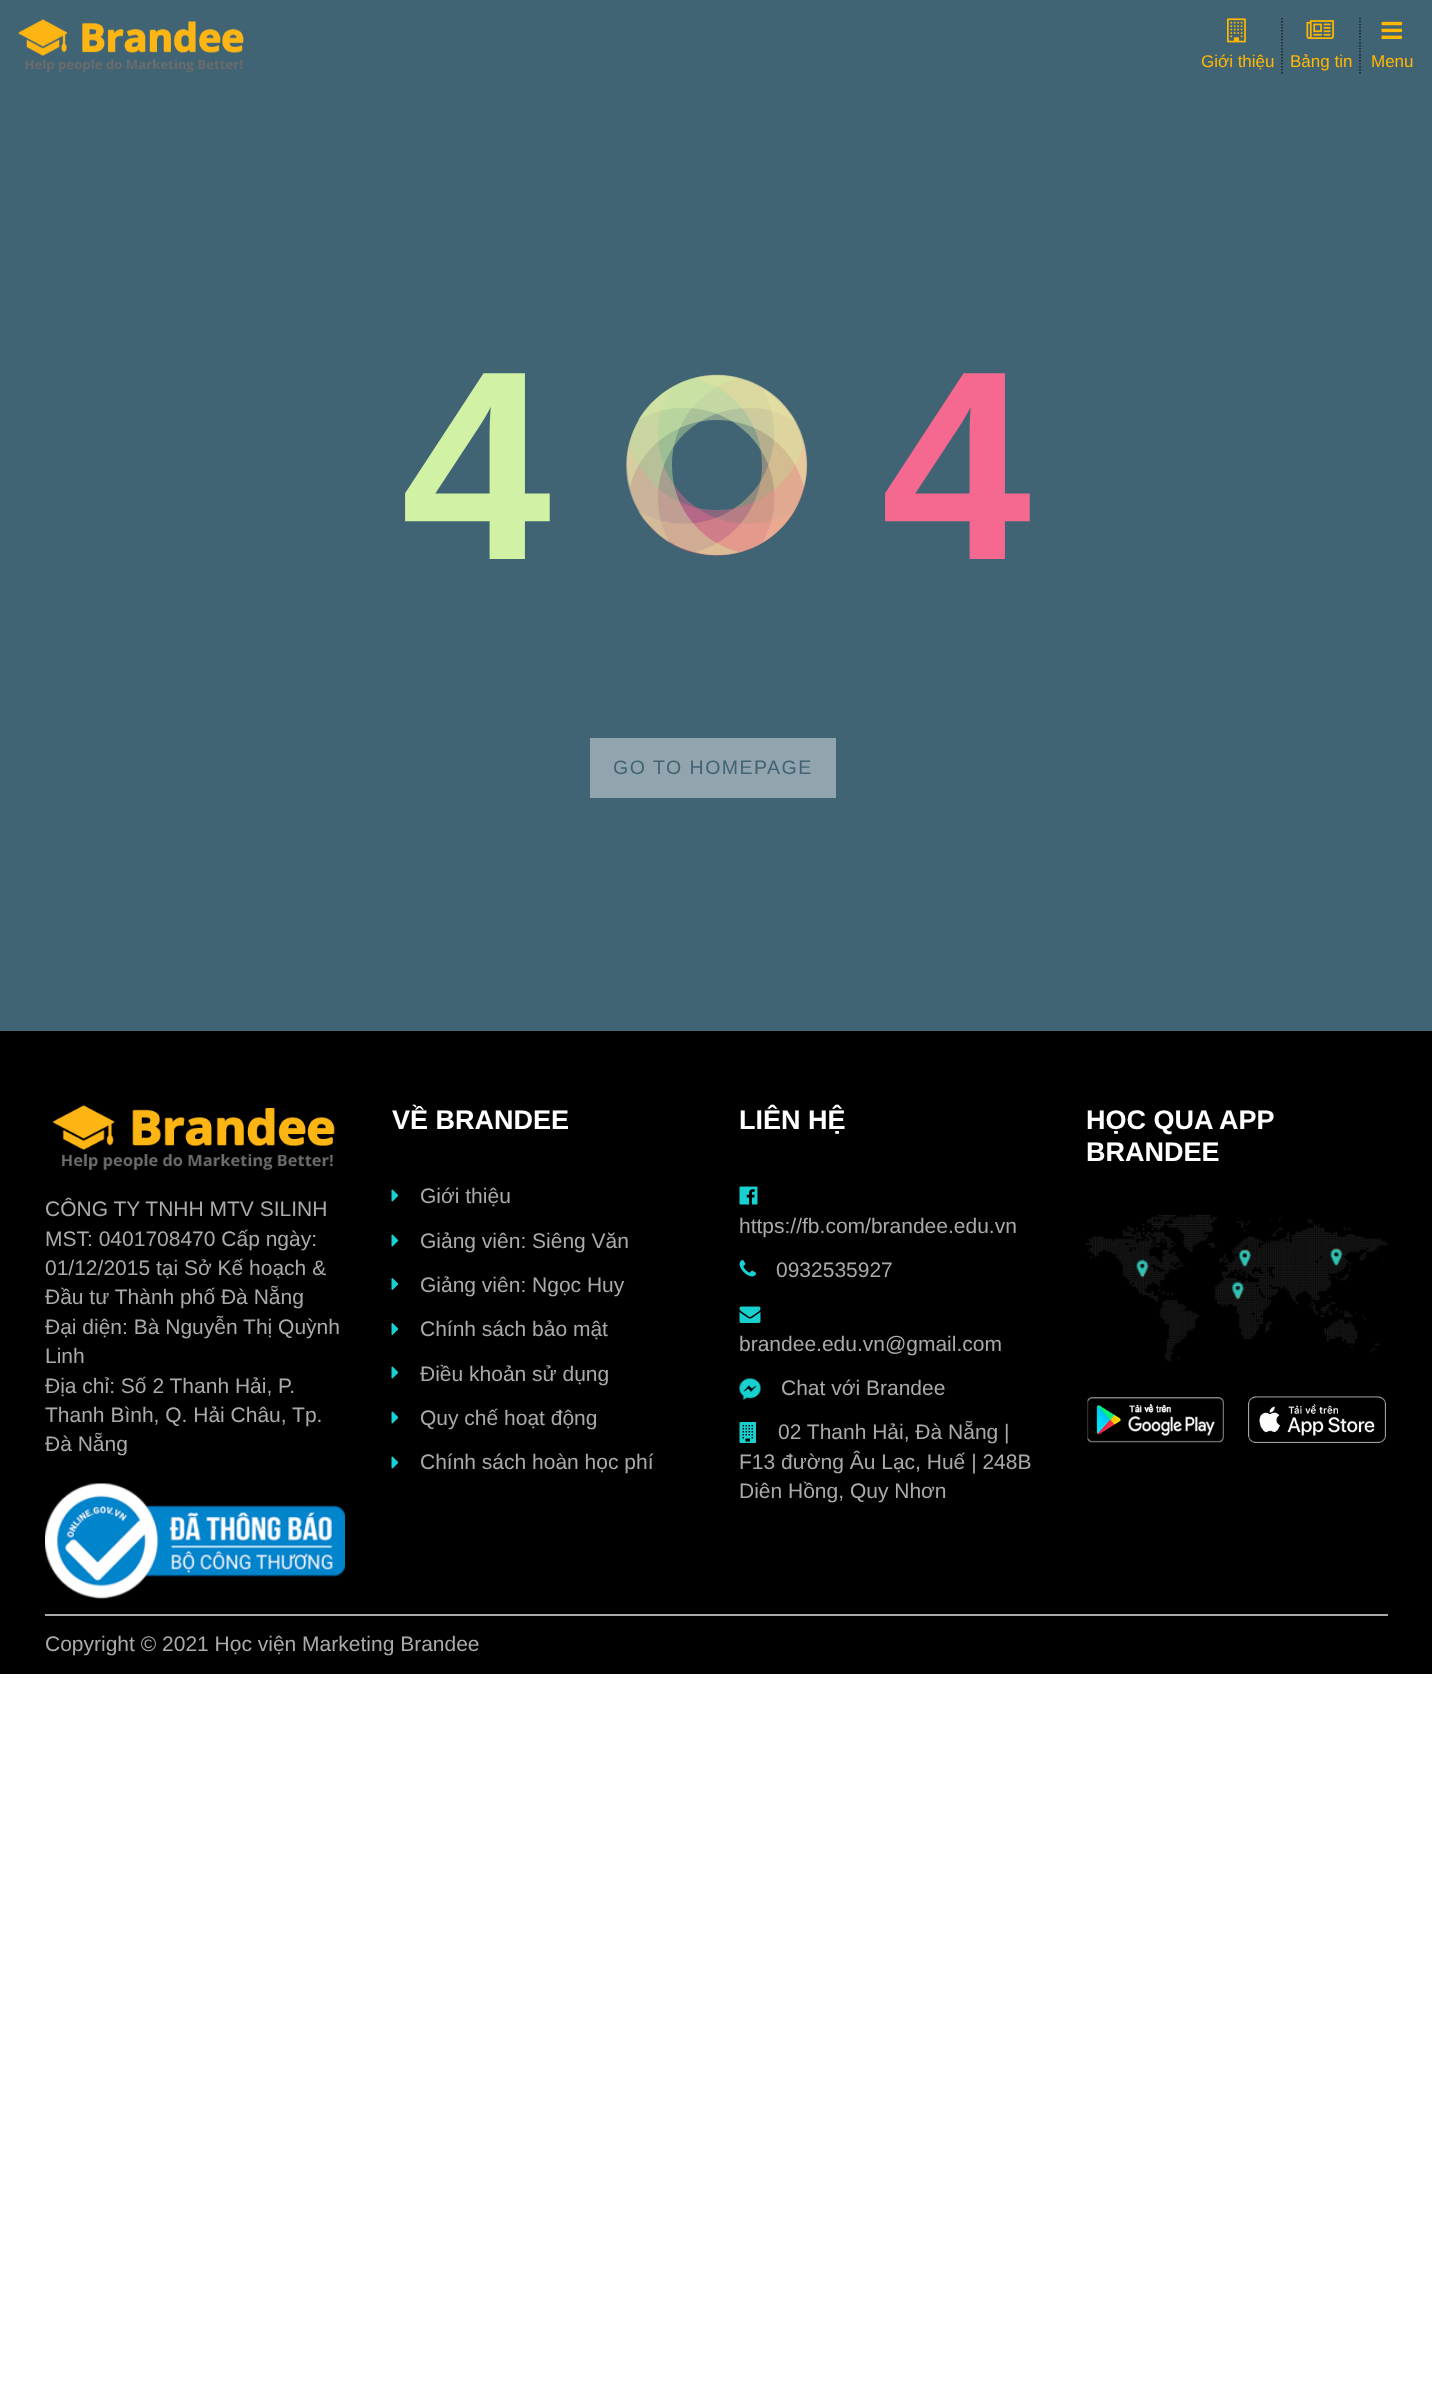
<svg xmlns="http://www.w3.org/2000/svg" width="1432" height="2400">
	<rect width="100%" height="100%" fill="#FFFFFF" />
	<rect x="0" y="0" width="1432" height="1031" fill="#416475" />
	<image x="18" y="19" width="226" height="54" href="assets/img1.png" />
	<path d="M1282 18V73.5" fill="none" stroke="#212121" stroke-width="1.5" stroke-dasharray="1.5 1.5" />
	<image x="1227" y="18" width="19" height="25" href="assets/img2.png" />
	<text x="1201" y="67" font-family="Liberation Sans" font-size="17" fill="#FFB700">Giới thiệu</text>
	<path d="M1360 18V73.5" fill="none" stroke="#212121" stroke-width="1.5" stroke-dasharray="1.5 1.5" />
	<image x="1306" y="20" width="28" height="19" href="assets/img3.png" />
	<text x="1290" y="67" font-family="Liberation Sans" font-size="17" fill="#FFB700">Bảng tin</text>
	<image x="1381" y="21" width="22" height="18" href="assets/img4.png" />
	<text x="1371" y="67" font-family="Liberation Sans" font-size="17" fill="#FFB700">Menu</text>
	<text x="401" y="559" font-family="Liberation Sans" font-size="270" font-weight="700" fill="#D1F2A5">4</text>
	<path d="M794 511C759 532 714 527 684 497C655 468 650 423 670 389C648 402 633 424 628 448C625 466 626 483 633 500C661 569 756 575 794 511Z" fill="#896680" />
	<path d="M780 402C774 397 768 392 762 388C782 423 777 468 748 497C718 527 673 532 638 511C642 518 647 524 653 529C688 564 745 564 780 529C815 494 815 437 780 402Z" fill="#FFC48C" fill-opacity="0.4" />
	<path d="M748 434C778 464 782 509 762 543C832 502 816 393 733 377C716 374 698 376 682 382C664 390 648 403 638 420C673 400 718 404 748 434Z" fill="#EFFAB4" fill-opacity="0.4" />
	<path d="M780 402C745 367 688 367 653 402C617 437 617 494 653 529C658 535 664 539 670 543C650 509 655 463 684 434C714 405 759 400 794 420C790 414 785 408 780 402Z" fill="#D1F2A5" fill-opacity="0.4" />
	<path d="M630 443C612 514 683 577 752 548C768 541 782 530 792 515C806 494 811 467 804 443C794 482 759 510 717 510C675 510 640 482 630 443Z" fill="#F56991" fill-opacity="0.4" />
	<path d="M717 375C709 375 702 376 695 378C734 388 762 423 762 465C762 507 734 542 695 552C702 554 709 555 717 555C767 555 807 515 807 465C807 415 767 375 717 375Z" fill="#FFC48C" fill-opacity="0.4" />
	<path d="M717 420C759 420 794 448 804 487C811 463 806 436 792 415C782 400 768 389 752 382C683 353 612 416 630 487C640 448 675 420 717 420Z" fill="#EFFAB4" fill-opacity="0.4" />
	<path d="M717 375C667 375 627 415 627 465C627 515 667 555 717 555C725 555 732 554 739 552C700 542 672 507 672 465C672 423 700 388 739 378C732 376 725 375 717 375Z" fill="#D1F2A5" fill-opacity="0.4" />
	<text x="881" y="559" font-family="Liberation Sans" font-size="270" font-weight="700" fill="#F56991">4</text>
	<rect x="590" y="738" width="246" height="60" fill="#92A4AD" />
	<text x="613" y="774" font-family="Liberation Sans" font-size="19.5" letter-spacing="1.5" fill="#416475">GO TO HOMEPAGE</text>
	<rect x="0" y="1031" width="1432" height="643" fill="#000000" />
	<text x="392" y="1129" font-family="Liberation Sans" font-size="27" font-weight="700" fill="#FFFFFF">VỀ BRANDEE</text>
	<image x="391" y="1189" width="8" height="13" href="assets/img5.png" />
	<text x="420" y="1203" font-family="Liberation Sans" font-size="21" fill="#AAAAAA">Giới thiệu</text>
	<image x="391" y="1234" width="8" height="13" href="assets/img5.png" />
	<text x="420" y="1248" font-family="Liberation Sans" font-size="21" fill="#AAAAAA">Giảng viên: Siêng Văn</text>
	<image x="391" y="1278" width="8" height="12" href="assets/img6.png" />
	<text x="420" y="1292" font-family="Liberation Sans" font-size="21" fill="#AAAAAA">Giảng viên: Ngọc Huy</text>
	<image x="391" y="1323" width="8" height="12" href="assets/img6.png" />
	<text x="420" y="1336" font-family="Liberation Sans" font-size="21" fill="#AAAAAA">Chính sách bảo mật</text>
	<image x="391" y="1366" width="8" height="13" href="assets/img5.png" />
	<text x="420" y="1381" font-family="Liberation Sans" font-size="21" fill="#AAAAAA">Điều khoản sử dụng</text>
	<image x="391" y="1411" width="8" height="13" href="assets/img5.png" />
	<text x="420" y="1425" font-family="Liberation Sans" font-size="21" fill="#AAAAAA">Quy chế hoạt động</text>
	<image x="391" y="1456" width="8" height="13" href="assets/img5.png" />
	<text x="420" y="1469" font-family="Liberation Sans" font-size="21" fill="#AAAAAA">Chính sách hoàn học phí</text>
	<text x="739" y="1129" font-family="Liberation Sans" font-size="27" font-weight="700" fill="#FFFFFF">LIÊN HỆ</text>
	<image x="739" y="1186" width="19" height="19" href="assets/img7.png" />
	<text x="739" y="1233" font-family="Liberation Sans" font-size="21" fill="#AAAAAA">https://fb.com/brandee.edu.vn</text>
	<image x="739" y="1260" width="17" height="17" href="assets/img8.png" />
	<text x="776" y="1277" font-family="Liberation Sans" font-size="21" fill="#AAAAAA">0932535927</text>
	<image x="739" y="1306" width="22" height="17" href="assets/img9.png" />
	<text x="739" y="1351" font-family="Liberation Sans" font-size="21" fill="#AAAAAA">brandee.edu.vn@gmail.com</text>
	<image x="739" y="1378" width="22" height="22" href="assets/img10.png" />
	<text x="781" y="1395" font-family="Liberation Sans" font-size="21" fill="#AAAAAA">Chat với Brandee</text>
	<image x="739" y="1422" width="17" height="21" href="assets/img11.png" />
	<g font-family="Liberation Sans" font-size="21" fill="#AAAAAA">
		<text x="778" y="1439">02 Thanh Hải, Đà Nẵng |</text>
		<text x="739" y="1469">F13 đường Âu Lạc, Huế | 248B</text>
		<text x="739" y="1498">Diên Hồng, Quy Nhơn</text>
	</g>
	<g font-family="Liberation Sans" font-size="27" font-weight="700" fill="#FFFFFF">
		<text x="1086" y="1129">HỌC QUA APP</text>
		<text x="1086" y="1161">BRANDEE</text>
	</g>
	<image x="1086" y="1215" width="302" height="146" href="assets/img12.png" />
	<image x="1087" y="1397" width="137" height="46" href="assets/img13.png" />
	<image x="1248" y="1396" width="138" height="47" href="assets/img14.png" />
	<image x="53" y="1105" width="282" height="65" href="assets/img15.png" />
	<g font-family="Liberation Sans" font-size="21" fill="#AAAAAA">
		<text x="45" y="1216">CÔNG TY TNHH MTV SILINH</text>
		<text x="45" y="1246">MST: 0401708470 Cấp ngày:</text>
		<text x="45" y="1275">01/12/2015 tại Sở Kế hoạch &amp;</text>
		<text x="45" y="1304">Đầu tư Thành phố Đà Nẵng</text>
		<text x="45" y="1334">Đại diện: Bà Nguyễn Thị Quỳnh</text>
		<text x="45" y="1363">Linh</text>
		<text x="45" y="1393">Địa chỉ: Số 2 Thanh Hải, P.</text>
		<text x="45" y="1422">Thanh Bình, Q. Hải Châu, Tp.</text>
		<text x="45" y="1451">Đà Nẵng</text>
	</g>
	<image x="45" y="1483" width="300" height="116" href="assets/img16.png" />
	<rect x="45" y="1614" width="1343" height="2" fill="#AAAAAA" />
	<text x="45" y="1651" font-family="Liberation Sans" font-size="21" fill="#AAAAAA">Copyright © 2021 Học viện Marketing Brandee</text>
</svg>
